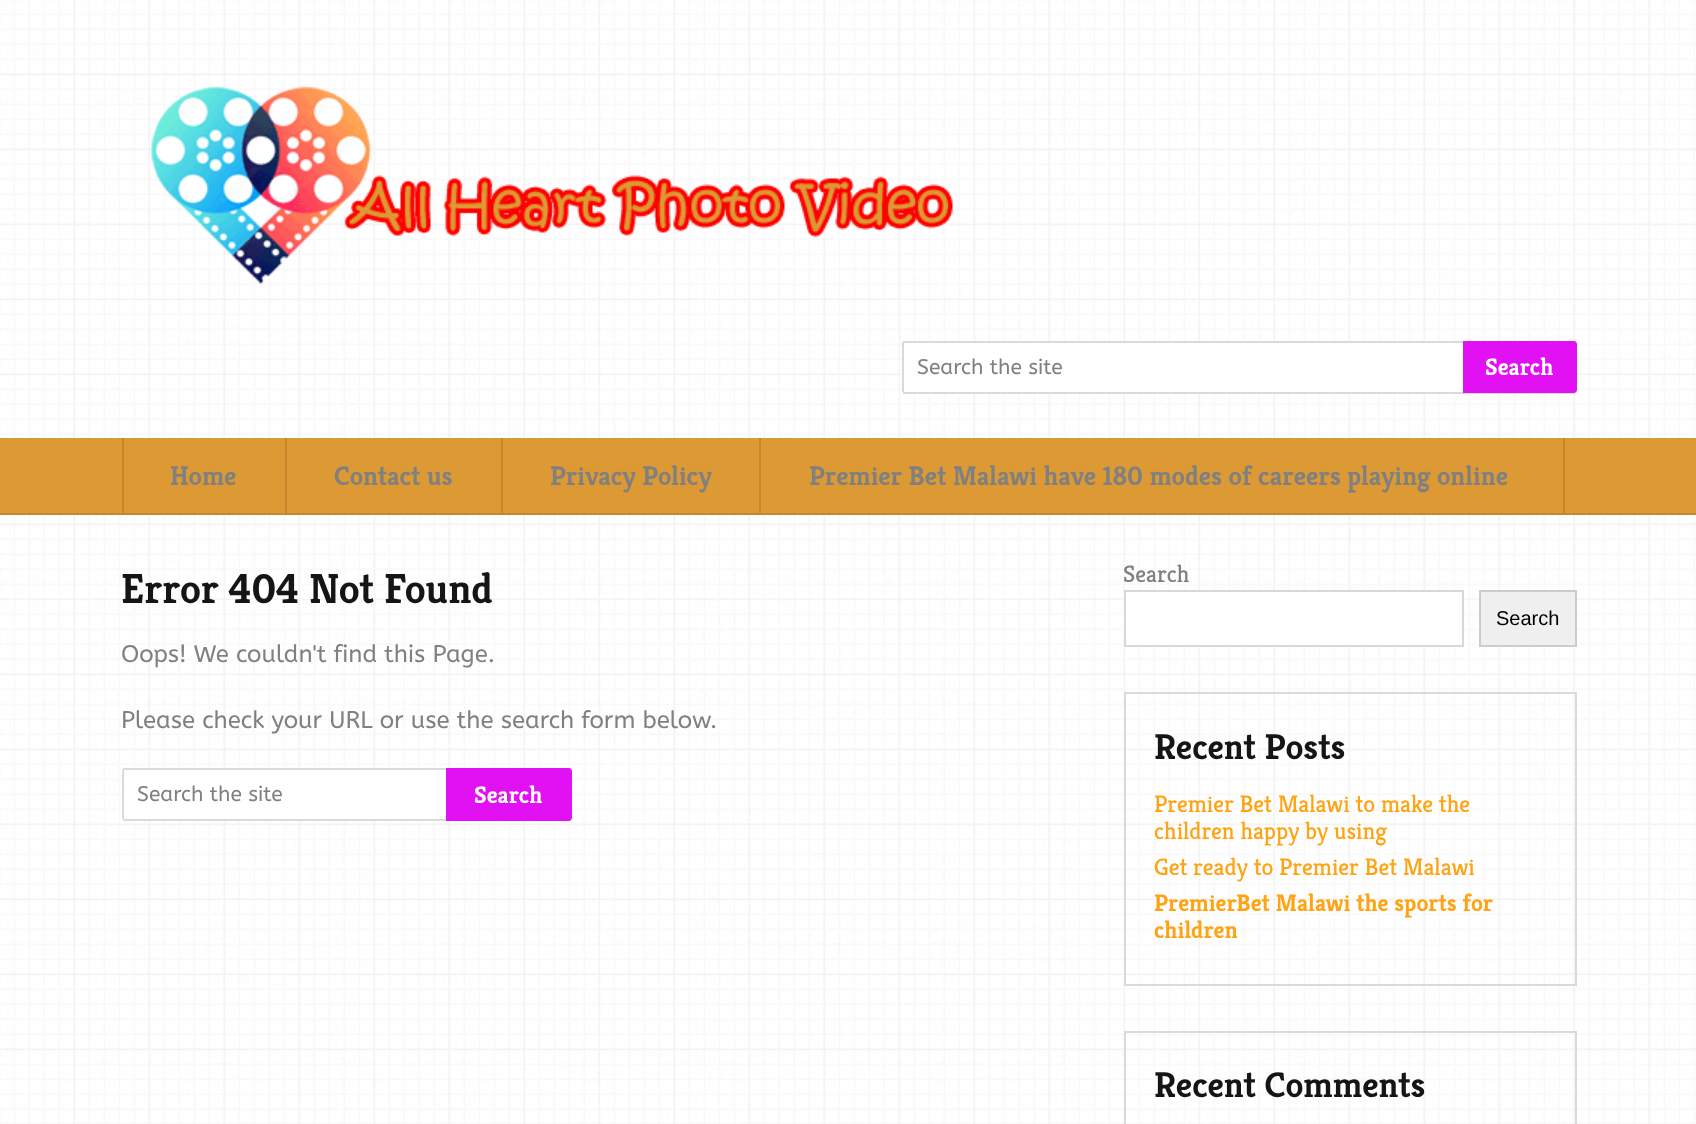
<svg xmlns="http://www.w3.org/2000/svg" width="1696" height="1124">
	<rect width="100%" height="100%" fill="#FFFFFF" />
	<image x="0" y="0" width="1696" height="1124" href="assets/img1.png" />
	<image x="151" y="86" width="802" height="198" href="assets/img2.png" />
	<rect x="902" y="341" width="675" height="52" rx="3" fill="#FFFFFF" />
	<rect x="903" y="341" width="672" height="2" fill="#DADADA" />
	<rect x="903" y="392" width="672" height="2" fill="#DADADA" />
	<rect x="902" y="342" width="2" height="50" fill="#DADADA" />
	<text x="917" y="374" font-family="ABeeZee" font-size="21" fill="#808080">Search the site</text>
	<path d="M1463 341H1574C1575.5 341 1577 342.5 1577 344V390C1577 391.5 1575.5 393 1574 393H1463Z" fill="#E111F4" />
	<text x="1485" y="375" font-family="Kreon" font-size="24" font-weight="700" fill="#FFFFFF">Search</text>
	<rect x="0" y="438" width="1696" height="75" fill="#DD9933" />
	<rect x="0" y="513" width="1696" height="2" fill="#C5882D" />
	<rect x="122" y="438" width="2" height="75" fill="#C5882D" />
	<text x="170" y="485" font-family="Kreon" font-size="27" font-weight="700" fill="#808080">Home</text>
	<rect x="285" y="438" width="2" height="75" fill="#C5882D" />
	<text x="334" y="485" font-family="Kreon" font-size="27" font-weight="700" fill="#808080">Contact us</text>
	<rect x="501" y="438" width="2" height="75" fill="#C5882D" />
	<text x="550" y="485" font-family="Kreon" font-size="27" font-weight="700" fill="#808080">Privacy Policy</text>
	<rect x="1563" y="438" width="2" height="75" fill="#C5882D" />
	<rect x="759" y="438" width="2" height="75" fill="#C5882D" />
	<text x="809" y="485" font-family="Kreon" font-size="27" font-weight="700" fill="#808080">Premier Bet Malawi have 180 modes of careers playing online</text>
	<text x="121" y="603" font-family="Kreon" font-size="42" font-weight="700" fill="#151515">Error 404 Not Found</text>
	<g font-family="ABeeZee" font-size="24" fill="#808080">
		<text x="121" y="662">Oops! We couldn't find this Page.</text>
		<text x="121" y="728">Please check your URL or use the search form below.</text>
	</g>
	<rect x="122" y="768" width="450" height="53" rx="3" fill="#FFFFFF" />
	<rect x="123" y="768" width="447" height="2" fill="#DADADA" />
	<rect x="123" y="819" width="447" height="2" fill="#DADADA" />
	<rect x="122" y="770" width="2" height="49" fill="#DADADA" />
	<text x="137" y="801" font-family="ABeeZee" font-size="21" fill="#808080">Search the site</text>
	<path d="M446 768H569C570.5 768 572 769.5 572 771V818C572 819.5 570.5 821 569 821H446Z" fill="#E111F4" />
	<text x="474" y="803" font-family="Kreon" font-size="24" font-weight="700" fill="#FFFFFF">Search</text>
	<text x="1123" y="582" font-family="Kreon" font-size="24" fill="#808080">Search</text>
	<rect x="1125" y="591" width="338" height="55" fill="#FFFFFF" stroke="#D8D8D8" stroke-width="2" />
	<rect x="1480" y="591" width="96" height="55" fill="#EFEFEF" stroke="#CCCCCC" stroke-width="2" />
	<text x="1496" y="625" font-family="Liberation Sans" font-size="20" fill="#000000">Search</text>
	<rect x="1125" y="693" width="451" height="292" fill="none" stroke="#DADADA" stroke-width="2" />
	<text x="1154" y="759" font-family="Kreon" font-size="36" font-weight="700" fill="#151515">Recent Posts</text>
	<g font-family="Kreon" font-size="24" fill="#FFA312">
		<text x="1154" y="812">Premier Bet Malawi to make the</text>
		<text x="1154" y="839">children happy by using</text>
		<text x="1154" y="875">Get ready to Premier Bet Malawi</text>
	</g>
	<g font-family="Kreon" font-size="24" font-weight="700" fill="#FFA312">
		<text x="1154" y="911">PremierBet Malawi the sports for</text>
		<text x="1154" y="938">children</text>
	</g>
	<rect x="1125" y="1032" width="451" height="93" fill="none" stroke="#DADADA" stroke-width="2" />
	<text x="1154" y="1097" font-family="Kreon" font-size="36" font-weight="700" fill="#151515">Recent Comments</text>
</svg>
